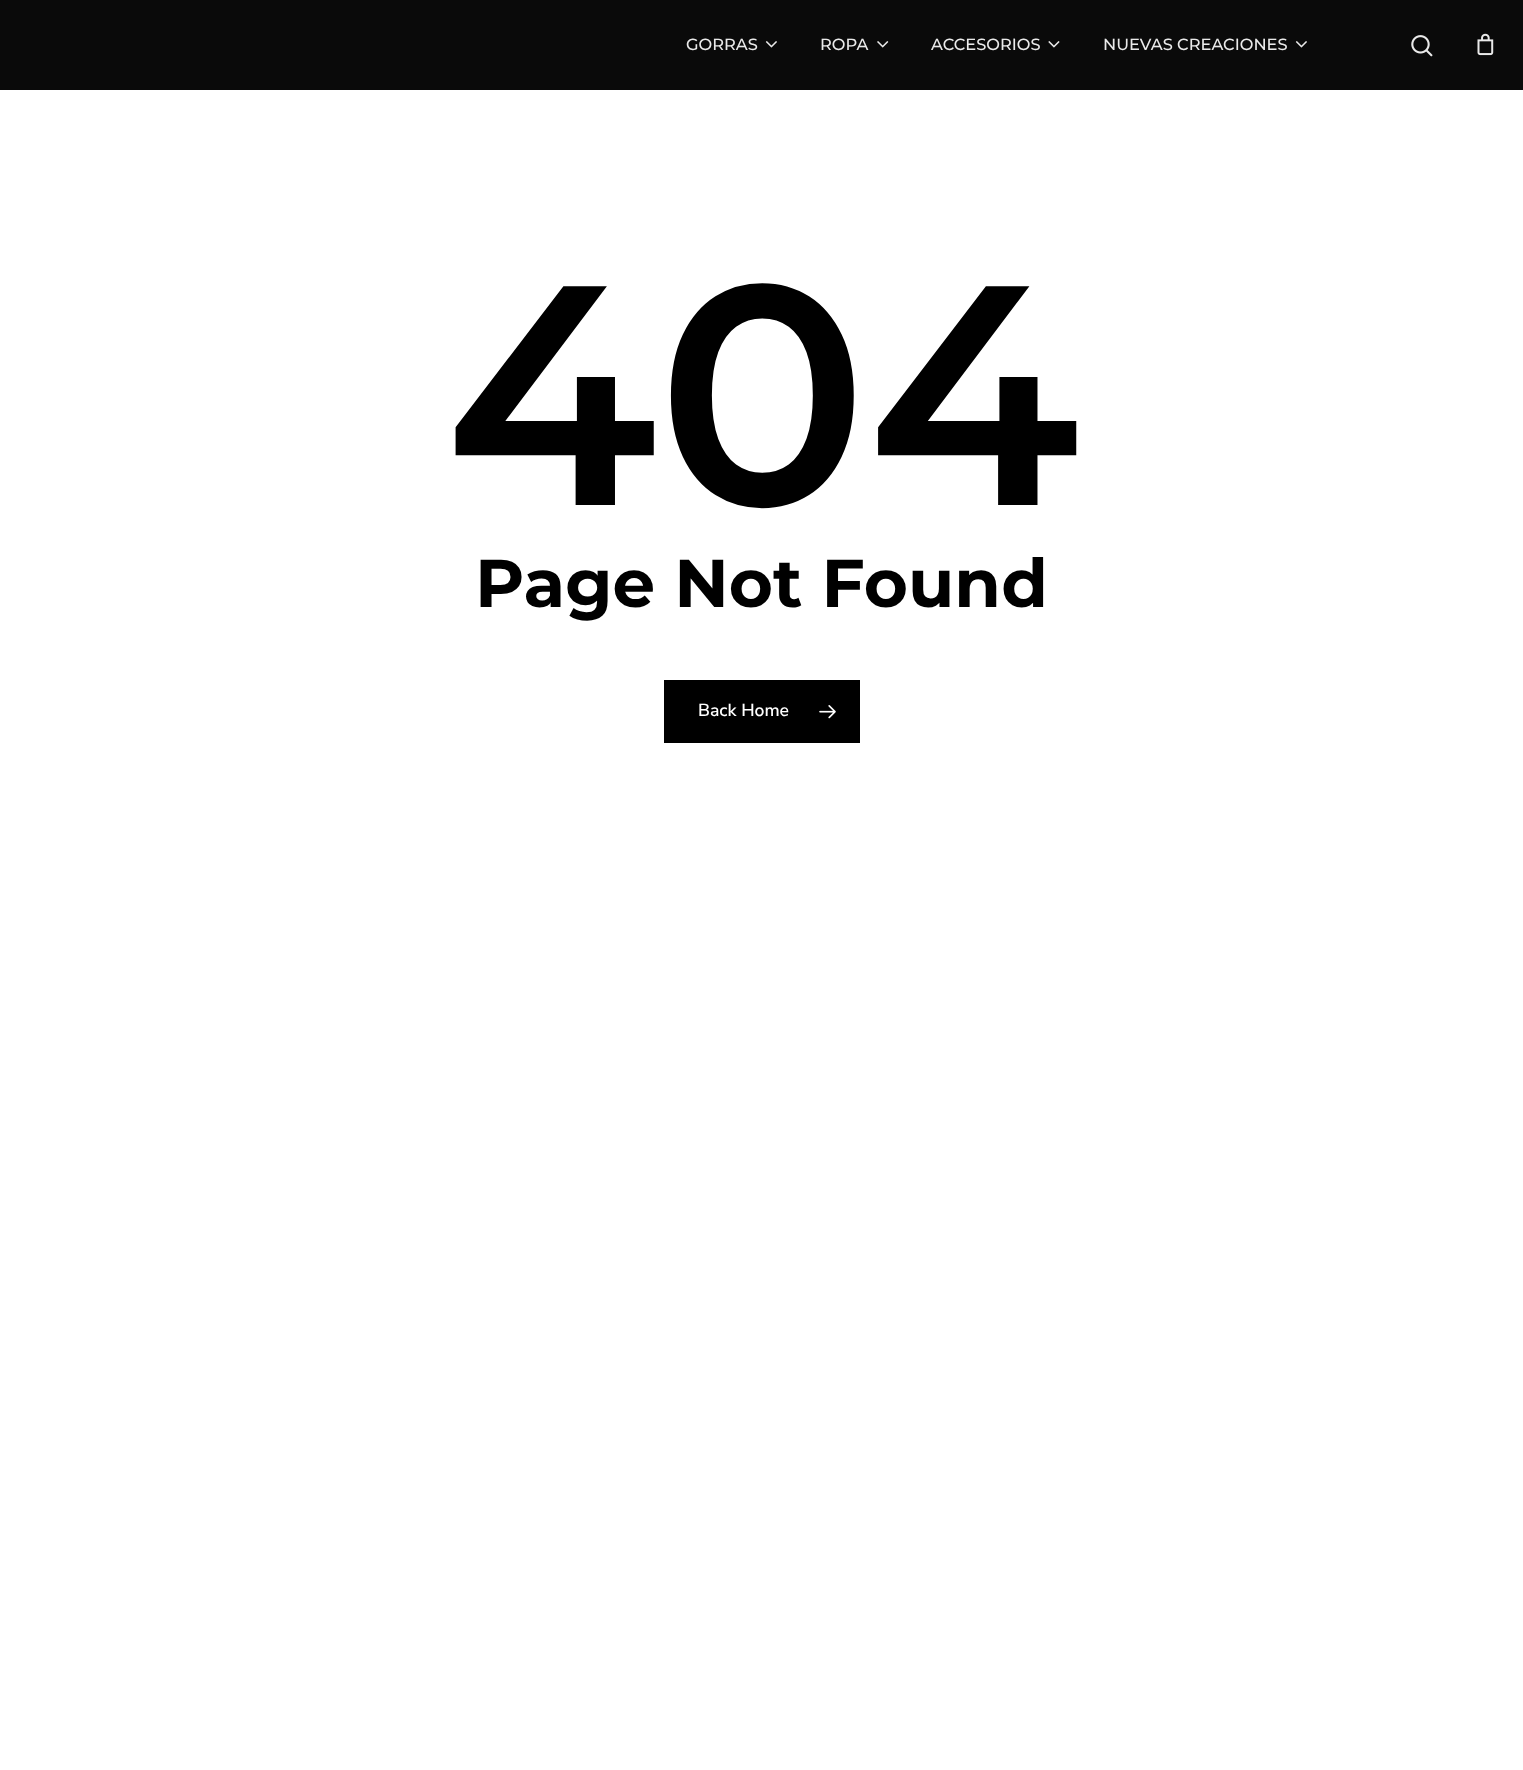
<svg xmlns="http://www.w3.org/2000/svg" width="1523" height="1770">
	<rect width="100%" height="100%" fill="#FFFFFF" />
	<rect x="0" y="0" width="1523" height="90" fill="#0A0A0A" />
	<text x="686" y="50" font-family="Montserrat" font-size="16.25" font-weight="500" fill="#EAEAEA">GORRAS</text>
	<image x="765" y="41" width="12" height="7" href="assets/img1.png" />
	<text x="820" y="50" font-family="Montserrat" font-size="16.25" font-weight="500" fill="#EAEAEA">ROPA</text>
	<image x="877" y="41" width="12" height="7" href="assets/img2.png" />
	<text x="931" y="50" font-family="Montserrat" font-size="16.25" font-weight="500" fill="#EAEAEA">ACCESORIOS</text>
	<image x="1048" y="41" width="12" height="7" href="assets/img3.png" />
	<text x="1103" y="50" font-family="Montserrat" font-size="16.25" font-weight="500" fill="#EAEAEA">NUEVAS CREACIONES</text>
	<image x="1295" y="41" width="12" height="7" href="assets/img1.png" />
	<image x="1411" y="35" width="22" height="22" href="assets/img4.png" />
	<image x="1477" y="33" width="17" height="23" href="assets/img5.png" />
	<text x="445" y="505" font-family="Montserrat" font-size="312.5" font-weight="600" fill="#000000">404</text>
	<text x="475" y="607" font-family="Montserrat" font-size="67.5" font-weight="700" fill="#000000">Page Not Found</text>
	<rect x="664" y="680" width="196" height="63" fill="#000000" />
	<text x="698" y="716" font-family="Nunito Sans" font-size="17.5" font-weight="600" fill="#FFFFFF">Back Home</text>
	<image x="819" y="705" width="17" height="14" href="assets/img6.png" />
</svg>
